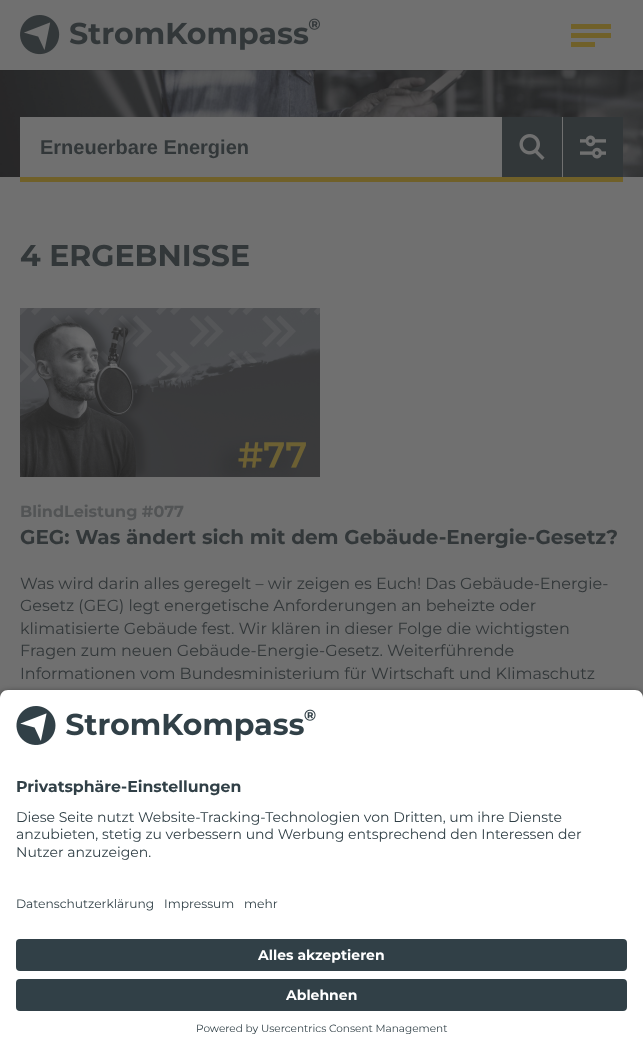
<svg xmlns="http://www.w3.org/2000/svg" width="643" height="1051">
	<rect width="100%" height="100%" fill="#707070" />
	<image x="0" y="70" width="643" height="107" href="assets/img2.png" />
	<rect x="-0.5" y="-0.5" width="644" height="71" fill="none" stroke="#242424" stroke-opacity="0.1" />
	<image x="20" y="15" width="300" height="40" href="assets/img1.png" />
	<rect x="571" y="24" width="40" height="5" fill="#706029" />
	<rect x="571" y="33" width="40" height="5" fill="#706029" />
	<rect x="571" y="42" width="24" height="5" fill="#706029" />
	<rect x="20" y="117" width="543" height="60" fill="#707070" />
	<rect x="20" y="177" width="603" height="5" fill="#706029" />
	<text x="40" y="154" font-family="Liberation Sans" font-size="20" font-weight="700" fill="#323739">Erneuerbare Energien</text>
	<rect x="502" y="117" width="60" height="60" fill="#323739" />
	<image x="519" y="134" width="26" height="26" href="assets/img3.png" />
	<rect x="563" y="117" width="60" height="60" fill="#323739" />
	<image x="580" y="135" width="26" height="24" href="assets/img4.png" />
	<text x="20" y="266" font-family="Montserrat" font-size="30" font-weight="700" fill="#323739">4 ERGEBNISSE</text>
	<image x="20" y="308" width="300" height="169" href="assets/img5.png" />
	<text x="20" y="517" font-family="Montserrat" font-size="16" font-weight="700" fill="#525455">BlindLeistung #077</text>
	<text x="20" y="544" font-family="Montserrat" font-size="20" font-weight="700" fill="#323739">GEG: Was ändert sich mit dem Gebäude-Energie-Gesetz?</text>
	<g font-family="Montserrat" font-size="16" fill="#323739">
		<text x="20" y="589">Was wird darin alles geregelt – wir zeigen es Euch! Das Gebäude-Energie-</text>
		<text x="20" y="611">Gesetz (GEG) legt energetische Anforderungen an beheizte oder</text>
		<text x="20" y="634">klimatisierte Gebäude fest. Wir klären in dieser Folge die wichtigsten</text>
		<text x="20" y="656">Fragen zum neuen Gebäude-Energie-Gesetz. Weiterführende</text>
		<text x="20" y="679">Informationen vom Bundesministerium für Wirtschaft und Klimaschutz</text>
	</g>
	<rect x="0" y="693" width="643" height="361" rx="8" fill="#000000" fill-opacity="0.8" filter="blur(3.5px)" />
	<path d="M8 690H635C639.5 690 643 693.5 643 698V881H0V698C0 693.5 3.5 690 8 690Z" fill="#FFFFFF" />
	<image x="16" y="706" width="300" height="39" href="assets/img6.png" />
	<text x="16" y="792" font-family="Montserrat" font-size="15.75" font-weight="700" fill="#314047">Privatsphäre-Einstellungen</text>
	<g font-family="Montserrat" font-size="14" fill="#314047">
		<text x="16" y="822">Diese Seite nutzt Website-Tracking-Technologien von Dritten, um ihre Dienste</text>
		<text x="16" y="839">anzubieten, stetig zu verbessern und Werbung entsprechend den Interessen der</text>
		<text x="16" y="857">Nutzer anzuzeigen.</text>
	</g>
	<rect x="0" y="881" width="643" height="170" fill="#FFFFFF" />
	<g font-family="Montserrat" font-size="12.25" fill="#314047">
		<text x="16" y="908">Datenschutzerklärung</text>
		<text x="164" y="908">Impressum</text>
		<text x="244" y="908">mehr</text>
	</g>
	<rect x="16" y="939" width="611" height="32" rx="4" fill="#314047" />
	<text x="258" y="960" font-family="Montserrat" font-size="14" font-weight="700" fill="#FFFFFF">Alles akzeptieren</text>
	<rect x="16" y="979" width="611" height="32" rx="4" fill="#314047" />
	<text x="286" y="1000" font-family="Montserrat" font-size="14" font-weight="700" fill="#FFFFFF">Ablehnen</text>
	<text x="196" y="1032" font-family="Montserrat" font-size="10.5" fill="#314047">Powered by Usercentrics Consent Management</text>
</svg>
